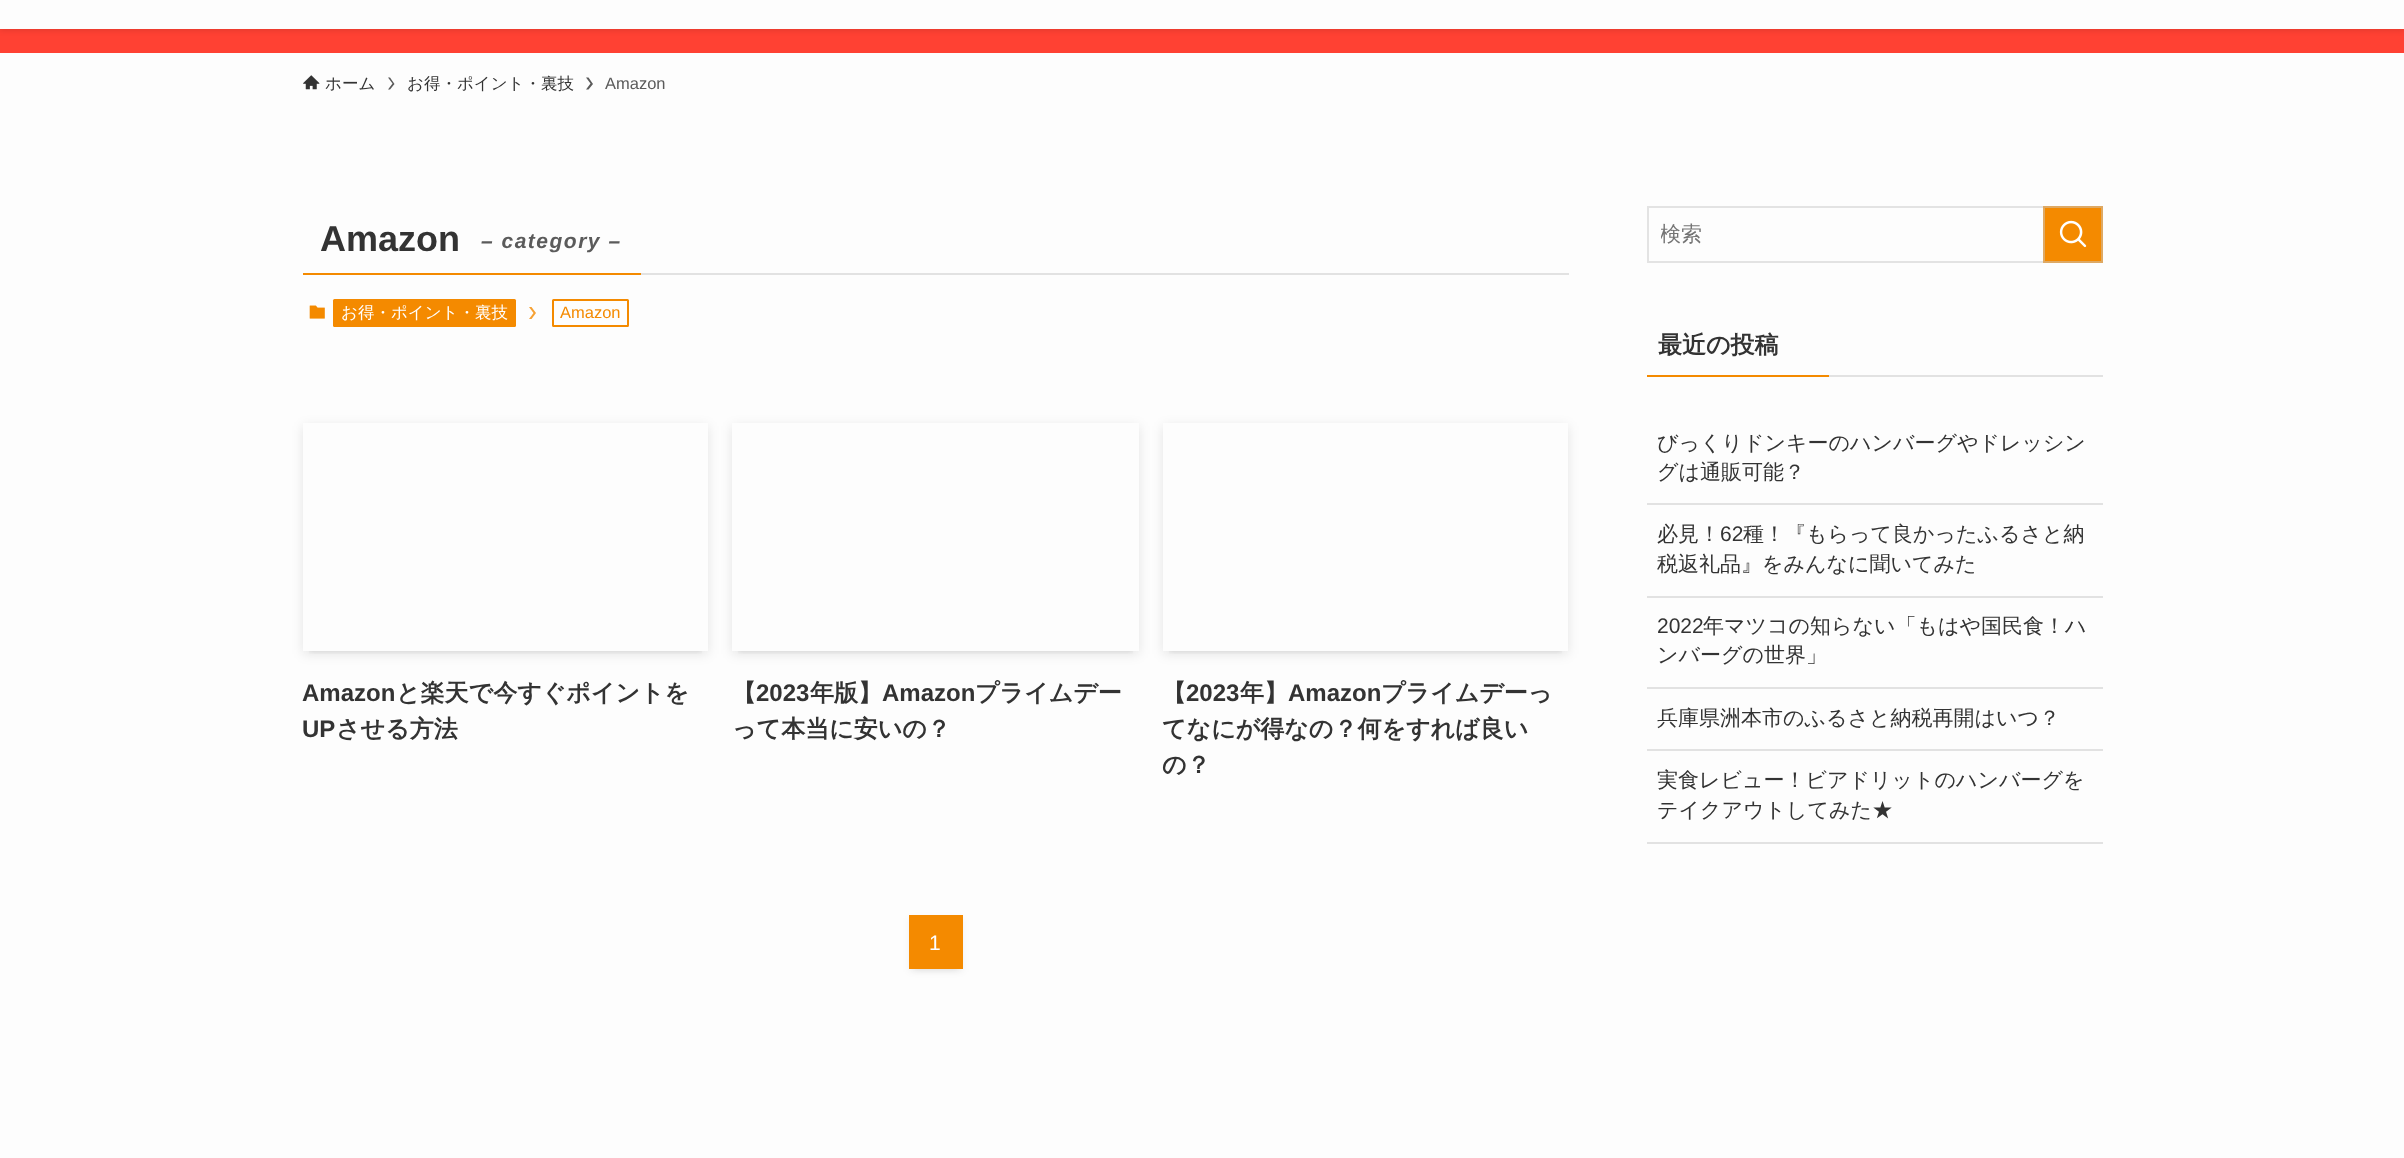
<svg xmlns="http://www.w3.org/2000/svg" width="2404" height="1158">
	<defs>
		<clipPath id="clip1"><rect x="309" y="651" width="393" height="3" /></clipPath>
		<clipPath id="clip2"><path d="M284 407H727V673H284ZM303 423H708V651H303Z" clip-rule="evenodd" /></clipPath>
		<clipPath id="clip3"><rect x="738" y="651" width="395" height="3" /></clipPath>
		<clipPath id="clip4"><path d="M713 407H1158V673H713ZM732 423H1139V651H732Z" clip-rule="evenodd" /></clipPath>
		<clipPath id="clip5"><rect x="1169" y="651" width="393" height="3" /></clipPath>
		<clipPath id="clip6"><path d="M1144 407H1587V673H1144ZM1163 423H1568V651H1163Z" clip-rule="evenodd" /></clipPath>
		<clipPath id="clip7"><rect x="1661" y="222" width="375" height="27" /></clipPath>
	</defs>
	<rect width="100%" height="100%" fill="#FDFDFD" />
	<rect x="0" y="29" width="2404" height="24" fill="#FF4133" />
	<rect x="0" y="-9" width="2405" height="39" fill="#000000" fill-opacity="0.12" filter="blur(3px)" />
	<rect x="0" y="0" width="2404" height="29" fill="#FDFDFD" />
	<image x="303" y="75" width="17" height="15" href="assets/img1.png" />
	<text x="325" y="89" font-family="WenQuanYi Zen Hei" font-size="16.5" font-weight="500" fill="#333333">ホーム</text>
	<path d="M390 77.5H388L392.5 83.5L388 89.5H390L394.5 84Z" fill="#5B5B5B" />
	<text x="407" y="89" font-family="WenQuanYi Zen Hei" font-size="16.5" font-weight="500" fill="#333333">お得・ポイント・裏技</text>
	<path d="M588.5 77.5H586L590.5 83.5L586 89.5H588.5L593 84Z" fill="#5B5B5B" />
	<text x="605" y="89" font-family="Liberation Sans" font-size="16.5" fill="#5B5B5B">Amazon</text>
	<rect x="641" y="273" width="928" height="2" fill="#E2E2E2" />
	<rect x="303" y="273" width="338" height="2" fill="#F48A00" />
	<text x="320" y="251" font-family="Liberation Sans" font-size="36" font-weight="700" fill="#333333">Amazon</text>
	<text x="481" y="248" font-family="Liberation Sans" font-size="21" font-weight="700" font-style="italic" letter-spacing="1.5" fill="#5B5B5B">– category –</text>
	<image x="309" y="305" width="16" height="14" href="assets/img2.png" />
	<rect x="333" y="299" width="183" height="28" rx="1.5" fill="#F48A00" />
	<text x="341" y="318" font-family="WenQuanYi Zen Hei" font-size="16.5" font-weight="500" fill="#FFFFFF">お得・ポイント・裏技</text>
	<path d="M531.5 307H529L533.5 313L529 319H531.5L536 313Z" fill="#F6A133" />
	<rect x="553" y="300" width="75" height="26" rx="0.5" fill="none" stroke="#F48A00" stroke-width="2" />
	<text x="560" y="318" font-family="Liberation Sans" font-size="16.5" fill="#F48A00">Amazon</text>
	<g clip-path="url(#clip1)">
		<rect x="309" y="435" width="393" height="216" fill="#000000" fill-opacity="0.1" filter="blur(3px)" />
	</g>
	<g clip-path="url(#clip2)">
		<rect x="303" y="426" width="405" height="228" fill="#000000" fill-opacity="0.1" filter="blur(6px)" />
	</g>
	<text x="302" y="701" font-family="Liberation Sans" font-size="24" font-weight="700" fill="#333333">Amazon</text>
	<text x="396" y="701" font-family="WenQuanYi Zen Hei" font-size="24" font-weight="700" fill="#333333">と楽天で今すぐポイントを</text>
	<text x="302" y="737" font-family="Liberation Sans" font-size="24" font-weight="700" fill="#333333">UP</text>
	<text x="336" y="737" font-family="WenQuanYi Zen Hei" font-size="24" font-weight="700" fill="#333333">させる方法</text>
	<g clip-path="url(#clip3)">
		<rect x="738" y="435" width="395" height="216" fill="#000000" fill-opacity="0.1" filter="blur(3px)" />
	</g>
	<g clip-path="url(#clip4)">
		<rect x="732" y="426" width="407" height="228" fill="#000000" fill-opacity="0.1" filter="blur(6px)" />
	</g>
	<text x="732" y="701" font-family="WenQuanYi Zen Hei" font-size="24" font-weight="700" fill="#333333">【</text>
	<text x="756" y="701" font-family="Liberation Sans" font-size="24" font-weight="700" fill="#333333">2023</text>
	<text x="810" y="701" font-family="WenQuanYi Zen Hei" font-size="24" font-weight="700" fill="#333333">年版】</text>
	<text x="882" y="701" font-family="Liberation Sans" font-size="24" font-weight="700" fill="#333333">Amazon</text>
	<g font-family="WenQuanYi Zen Hei" font-size="24" font-weight="700" fill="#333333">
		<text x="975" y="701">プライムデー</text>
		<text x="732" y="737">って本当に安いの？</text>
	</g>
	<g clip-path="url(#clip5)">
		<rect x="1169" y="435" width="393" height="216" fill="#000000" fill-opacity="0.1" filter="blur(3px)" />
	</g>
	<g clip-path="url(#clip6)">
		<rect x="1163" y="426" width="405" height="228" fill="#000000" fill-opacity="0.1" filter="blur(6px)" />
	</g>
	<text x="1162" y="701" font-family="WenQuanYi Zen Hei" font-size="24" font-weight="700" fill="#333333">【</text>
	<text x="1186" y="701" font-family="Liberation Sans" font-size="24" font-weight="700" fill="#333333">2023</text>
	<text x="1240" y="701" font-family="WenQuanYi Zen Hei" font-size="24" font-weight="700" fill="#333333">年】</text>
	<text x="1288" y="701" font-family="Liberation Sans" font-size="24" font-weight="700" fill="#333333">Amazon</text>
	<g font-family="WenQuanYi Zen Hei" font-size="24" font-weight="700" fill="#333333">
		<text x="1381" y="701">プライムデーっ</text>
		<text x="1162" y="737">てなにが得なの？何をすれば良い</text>
		<text x="1162" y="773">の？</text>
	</g>
	<rect x="915" y="927" width="42" height="42" fill="#000000" fill-opacity="0.1" filter="blur(3px)" />
	<rect x="909" y="918" width="54" height="54" fill="#000000" fill-opacity="0.05" filter="blur(3px)" />
	<rect x="909" y="915" width="54" height="54" fill="#F48A00" />
	<text x="929" y="950" font-family="Liberation Sans" font-size="21" fill="#FFFFFF">1</text>
	<rect x="1648" y="207" width="454" height="55" fill="none" stroke="#E3E3E3" stroke-width="2" />
	<g clip-path="url(#clip7)">
		<text x="1660" y="241" font-family="WenQuanYi Zen Hei" font-size="21" font-weight="500" fill="#757575">検索</text>
	</g>
	<rect x="2044" y="207" width="58" height="55" fill="#F48A00" stroke="#DEA964" stroke-width="2" />
	<image x="2059" y="220" width="28" height="28" href="assets/img3.png" />
	<text x="1658" y="353" font-family="WenQuanYi Zen Hei" font-size="24" font-weight="700" fill="#333333">最近の投稿</text>
	<rect x="1647" y="375" width="182" height="2" fill="#F48A00" />
	<rect x="1829" y="375" width="274" height="2" fill="#E2E2E2" />
	<rect x="1647" y="503" width="456" height="2" fill="#E2E2E2" />
	<g font-family="WenQuanYi Zen Hei" font-size="21" font-weight="500" fill="#333333">
		<text x="1657" y="450">びっくりドンキーのハンバーグやドレッシン</text>
		<text x="1657" y="479">グは通販可能？</text>
	</g>
	<rect x="1647" y="596" width="456" height="2" fill="#E2E2E2" />
	<text x="1657" y="541" font-family="WenQuanYi Zen Hei" font-size="21" font-weight="500" fill="#333333">必見！</text>
	<text x="1720" y="541" font-family="Liberation Sans" font-size="21" fill="#333333">62</text>
	<g font-family="WenQuanYi Zen Hei" font-size="21" font-weight="500" fill="#333333">
		<text x="1743" y="541">種！『もらって良かったふるさと納</text>
		<text x="1657" y="571">税返礼品』をみんなに聞いてみた</text>
	</g>
	<rect x="1647" y="687" width="456" height="2" fill="#E2E2E2" />
	<text x="1657" y="633" font-family="Liberation Sans" font-size="21" fill="#333333">2022</text>
	<g font-family="WenQuanYi Zen Hei" font-size="21" font-weight="500" fill="#333333">
		<text x="1703" y="633">年マツコの知らない「もはや国民食！ハ</text>
		<text x="1657" y="662">ンバーグの世界」</text>
	</g>
	<rect x="1647" y="749" width="456" height="2" fill="#E2E2E2" />
	<text x="1657" y="725" font-family="WenQuanYi Zen Hei" font-size="21" font-weight="500" fill="#333333">兵庫県洲本市のふるさと納税再開はいつ？</text>
	<rect x="1647" y="842" width="456" height="2" fill="#E2E2E2" />
	<g font-family="WenQuanYi Zen Hei" font-size="21" font-weight="500" fill="#333333">
		<text x="1657" y="787">実食レビュー！ビアドリットのハンバーグを</text>
		<text x="1657" y="817">テイクアウトしてみた★</text>
	</g>
</svg>
